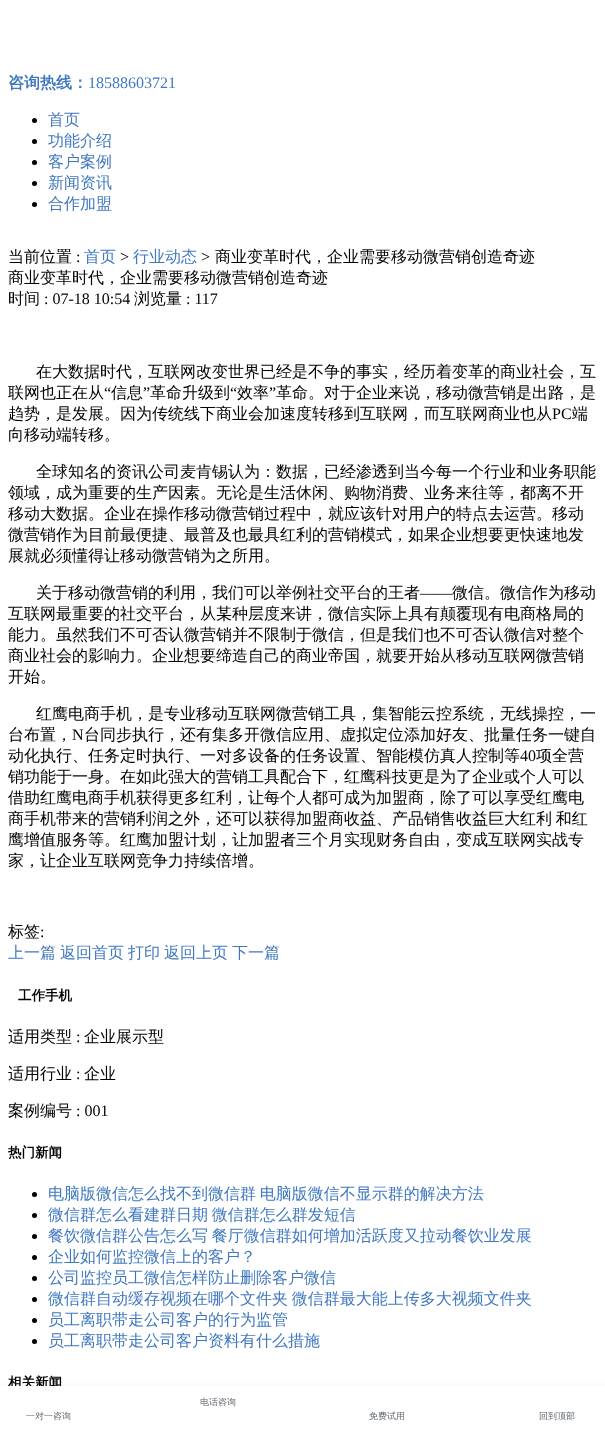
<svg xmlns="http://www.w3.org/2000/svg" width="605" height="1446">
	<rect width="100%" height="100%" fill="#FFFFFF" />
	<text x="8" y="88" font-family="WenQuanYi Zen Hei" font-size="16" font-weight="700" fill="#4078C0">咨询热线：</text>
	<text x="88" y="88" font-family="Liberation Serif" font-size="16" fill="#4078C0">18588603721</text>
	<circle cx="34.5" cy="120.5" r="2.5" fill="#000000" />
	<text x="48" y="125" font-family="WenQuanYi Zen Hei" font-size="16" font-weight="500" fill="#4078C0">首页</text>
	<circle cx="34.5" cy="141.5" r="2.5" fill="#000000" />
	<text x="48" y="146" font-family="WenQuanYi Zen Hei" font-size="16" font-weight="500" fill="#4078C0">功能介绍</text>
	<circle cx="34.5" cy="162.5" r="2.5" fill="#000000" />
	<text x="48" y="167" font-family="WenQuanYi Zen Hei" font-size="16" font-weight="500" fill="#4078C0">客户案例</text>
	<circle cx="34.5" cy="183.5" r="2.5" fill="#000000" />
	<text x="48" y="188" font-family="WenQuanYi Zen Hei" font-size="16" font-weight="500" fill="#4078C0">新闻资讯</text>
	<circle cx="34.5" cy="204.5" r="2.5" fill="#000000" />
	<text x="48" y="209" font-family="WenQuanYi Zen Hei" font-size="16" font-weight="500" fill="#4078C0">合作加盟</text>
	<text x="8" y="262" font-family="WenQuanYi Zen Hei" font-size="16" font-weight="500" fill="#000000">当前位置</text>
	<text x="76" y="262" font-family="Liberation Serif" font-size="16" fill="#000000">:</text>
	<text x="84" y="262" font-family="WenQuanYi Zen Hei" font-size="16" font-weight="500" fill="#4078C0">首页</text>
	<text x="120" y="262" font-family="Liberation Serif" font-size="16" fill="#000000">&gt;</text>
	<text x="133" y="262" font-family="WenQuanYi Zen Hei" font-size="16" font-weight="500" fill="#4078C0">行业动态</text>
	<text x="201" y="262" font-family="Liberation Serif" font-size="16" fill="#000000">&gt;</text>
	<g font-family="WenQuanYi Zen Hei" font-size="16" font-weight="500" fill="#000000">
		<text x="215" y="262">商业变革时代，企业需要移动微营销创造奇迹</text>
		<text x="8" y="283">商业变革时代，企业需要移动微营销创造奇迹</text>
		<text x="8" y="304">时间</text>
	</g>
	<text x="44" y="304" font-family="Liberation Serif" font-size="16" fill="#000000">: 07-18 10:54</text>
	<text x="134" y="304" font-family="WenQuanYi Zen Hei" font-size="16" font-weight="500" fill="#000000">浏览量</text>
	<text x="186" y="304" font-family="Liberation Serif" font-size="16" fill="#000000">: 117</text>
	<g font-family="WenQuanYi Zen Hei" font-size="16" font-weight="500" fill="#000000">
		<text x="36" y="377">在大数据时代，互联网改变世界已经是不争的事实，经历着变革的商业社会，互</text>
		<text x="8" y="398">联网也正在从</text>
	</g>
	<text x="104" y="398" font-family="Liberation Serif" font-size="16" fill="#000000">“</text>
	<text x="111" y="398" font-family="WenQuanYi Zen Hei" font-size="16" font-weight="500" fill="#000000">信息</text>
	<text x="143" y="398" font-family="Liberation Serif" font-size="16" fill="#000000">”</text>
	<text x="150" y="398" font-family="WenQuanYi Zen Hei" font-size="16" font-weight="500" fill="#000000">革命升级到</text>
	<text x="230" y="398" font-family="Liberation Serif" font-size="16" fill="#000000">“</text>
	<text x="237" y="398" font-family="WenQuanYi Zen Hei" font-size="16" font-weight="500" fill="#000000">效率</text>
	<text x="269" y="398" font-family="Liberation Serif" font-size="16" fill="#000000">”</text>
	<g font-family="WenQuanYi Zen Hei" font-size="16" font-weight="500" fill="#000000">
		<text x="276" y="398">革命。对于企业来说，移动微营销是出路，是</text>
		<text x="8" y="419">趋势，是发展。因为传统线下商业会加速度转移到互联网，而互联网商业也从</text>
	</g>
	<text x="552" y="419" font-family="Liberation Serif" font-size="16" fill="#000000">PC</text>
	<g font-family="WenQuanYi Zen Hei" font-size="16" font-weight="500" fill="#000000">
		<text x="572" y="419">端</text>
		<text x="8" y="440">向移动端转移。</text>
		<text x="36" y="477">全球知名的资讯公司麦肯锡认为：数据，已经渗透到当今每一个行业和业务职能</text>
		<text x="8" y="498">领域，成为重要的生产因素。无论是生活休闲、购物消费、业务来往等，都离不开</text>
		<text x="8" y="519">移动大数据。企业在操作移动微营销过程中，就应该针对用户的特点去运营。移动</text>
		<text x="8" y="540">微营销作为目前最便捷、最普及也最具红利的营销模式，如果企业想要更快速地发</text>
		<text x="8" y="561">展就必须懂得让移动微营销为之所用。</text>
		<text x="36" y="598">关于移动微营销的利用，我们可以举例社交平台的王者</text>
	</g>
	<text x="420" y="598" font-family="Liberation Serif" font-size="16" fill="#000000">——</text>
	<g font-family="WenQuanYi Zen Hei" font-size="16" font-weight="500" fill="#000000">
		<text x="452" y="598">微信。微信作为移动</text>
		<text x="8" y="619">互联网最重要的社交平台，从某种层度来讲，微信实际上具有颠覆现有电商格局的</text>
		<text x="8" y="640">能力。虽然我们不可否认微营销并不限制于微信，但是我们也不可否认微信对整个</text>
		<text x="8" y="661">商业社会的影响力。企业想要缔造自己的商业帝国，就要开始从移动互联网微营销</text>
		<text x="8" y="682">开始。</text>
		<text x="36" y="719">红鹰电商手机，是专业移动互联网微营销工具，集智能云控系统，无线操控，一</text>
		<text x="8" y="740">台布置，</text>
	</g>
	<text x="72" y="740" font-family="Liberation Serif" font-size="16" fill="#000000">N</text>
	<g font-family="WenQuanYi Zen Hei" font-size="16" font-weight="500" fill="#000000">
		<text x="84" y="740">台同步执行，还有集多开微信应用、虚拟定位添加好友、批量任务一键自</text>
		<text x="8" y="761">动化执行、任务定时执行、一对多设备的任务设置、智能模仿真人控制等</text>
	</g>
	<text x="520" y="761" font-family="Liberation Serif" font-size="16" fill="#000000">40</text>
	<g font-family="WenQuanYi Zen Hei" font-size="16" font-weight="500" fill="#000000">
		<text x="536" y="761">项全营</text>
		<text x="8" y="782">销功能于一身。在如此强大的营销工具配合下，红鹰科技更是为了企业或个人可以</text>
		<text x="8" y="803">借助红鹰电商手机获得更多红利，让每个人都可成为加盟商，除了可以享受红鹰电</text>
		<text x="8" y="824" word-spacing="-1">商手机带来的营销利润之外，还可以获得加盟商收益、产品销售收益巨大红利 和红</text>
		<text x="8" y="845">鹰增值服务等。红鹰加盟计划，让加盟者三个月实现财务自由，变成互联网实战专</text>
		<text x="8" y="866">家，让企业互联网竞争力持续倍增。</text>
		<text x="8" y="937">标签</text>
	</g>
	<text x="40" y="937" font-family="Liberation Serif" font-size="16" fill="#000000">:</text>
	<g font-family="WenQuanYi Zen Hei" font-size="16" font-weight="500" fill="#4078C0">
		<text x="8" y="958">上一篇</text>
		<text x="60" y="958">返回首页</text>
		<text x="128" y="958">打印</text>
		<text x="164" y="958">返回上页</text>
		<text x="232" y="958">下一篇</text>
	</g>
	<text x="18" y="1000" font-family="WenQuanYi Zen Hei" font-size="13.5" font-weight="700" fill="#000000">工作手机</text>
	<text x="8" y="1042" font-family="WenQuanYi Zen Hei" font-size="16" font-weight="500" fill="#000000">适用类型</text>
	<text x="76" y="1042" font-family="Liberation Serif" font-size="16" fill="#000000">:</text>
	<g font-family="WenQuanYi Zen Hei" font-size="16" font-weight="500" fill="#000000">
		<text x="84" y="1042">企业展示型</text>
		<text x="8" y="1079">适用行业</text>
	</g>
	<text x="76" y="1079" font-family="Liberation Serif" font-size="16" fill="#000000">:</text>
	<g font-family="WenQuanYi Zen Hei" font-size="16" font-weight="500" fill="#000000">
		<text x="84" y="1079">企业</text>
		<text x="8" y="1116">案例编号</text>
	</g>
	<text x="76" y="1116" font-family="Liberation Serif" font-size="16" fill="#000000">: 001</text>
	<text x="8" y="1157" font-family="WenQuanYi Zen Hei" font-size="13.5" font-weight="700" fill="#000000">热门新闻</text>
	<circle cx="34.5" cy="1194.5" r="2.5" fill="#000000" />
	<text x="48" y="1199" word-spacing="-1" font-family="WenQuanYi Zen Hei" font-size="16" font-weight="500" fill="#4078C0">电脑版微信怎么找不到微信群 电脑版微信不显示群的解决方法</text>
	<circle cx="34.5" cy="1215.5" r="2.5" fill="#000000" />
	<text x="48" y="1220" word-spacing="-1" font-family="WenQuanYi Zen Hei" font-size="16" font-weight="500" fill="#4078C0">微信群怎么看建群日期 微信群怎么群发短信</text>
	<circle cx="34.5" cy="1236.5" r="2.5" fill="#000000" />
	<text x="48" y="1241" word-spacing="-1" font-family="WenQuanYi Zen Hei" font-size="16" font-weight="500" fill="#4078C0">餐饮微信群公告怎么写 餐厅微信群如何增加活跃度又拉动餐饮业发展</text>
	<circle cx="34.5" cy="1257.5" r="2.5" fill="#000000" />
	<text x="48" y="1262" font-family="WenQuanYi Zen Hei" font-size="16" font-weight="500" fill="#4078C0">企业如何监控微信上的客户？</text>
	<circle cx="34.5" cy="1278.5" r="2.5" fill="#000000" />
	<text x="48" y="1283" font-family="WenQuanYi Zen Hei" font-size="16" font-weight="500" fill="#4078C0">公司监控员工微信怎样防止删除客户微信</text>
	<circle cx="34.5" cy="1299.5" r="2.5" fill="#000000" />
	<text x="48" y="1304" word-spacing="-1" font-family="WenQuanYi Zen Hei" font-size="16" font-weight="500" fill="#4078C0">微信群自动缓存视频在哪个文件夹 微信群最大能上传多大视频文件夹</text>
	<circle cx="34.5" cy="1320.5" r="2.5" fill="#000000" />
	<text x="48" y="1325" font-family="WenQuanYi Zen Hei" font-size="16" font-weight="500" fill="#4078C0">员工离职带走公司客户的行为监管</text>
	<circle cx="34.5" cy="1341.5" r="2.5" fill="#000000" />
	<text x="48" y="1346" font-family="WenQuanYi Zen Hei" font-size="16" font-weight="500" fill="#4078C0">员工离职带走公司客户资料有什么措施</text>
	<text x="8" y="1387" font-family="WenQuanYi Zen Hei" font-size="13.5" font-weight="700" fill="#000000">相关新闻</text>
	<rect x="0" y="1391" width="605" height="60" fill="#3153D4" fill-opacity="0.15" filter="blur(6.5px)" />
	<rect x="0" y="1386" width="605" height="60" fill="#FFFFFF" />
	<g font-family="WenQuanYi Zen Hei" font-size="9" font-weight="500" fill="#5F676E">
		<text x="200" y="1405">电话咨询</text>
		<text x="26" y="1419">一对一咨询</text>
		<text x="369" y="1419">免费试用</text>
		<text x="539" y="1419">回到顶部</text>
	</g>
</svg>
